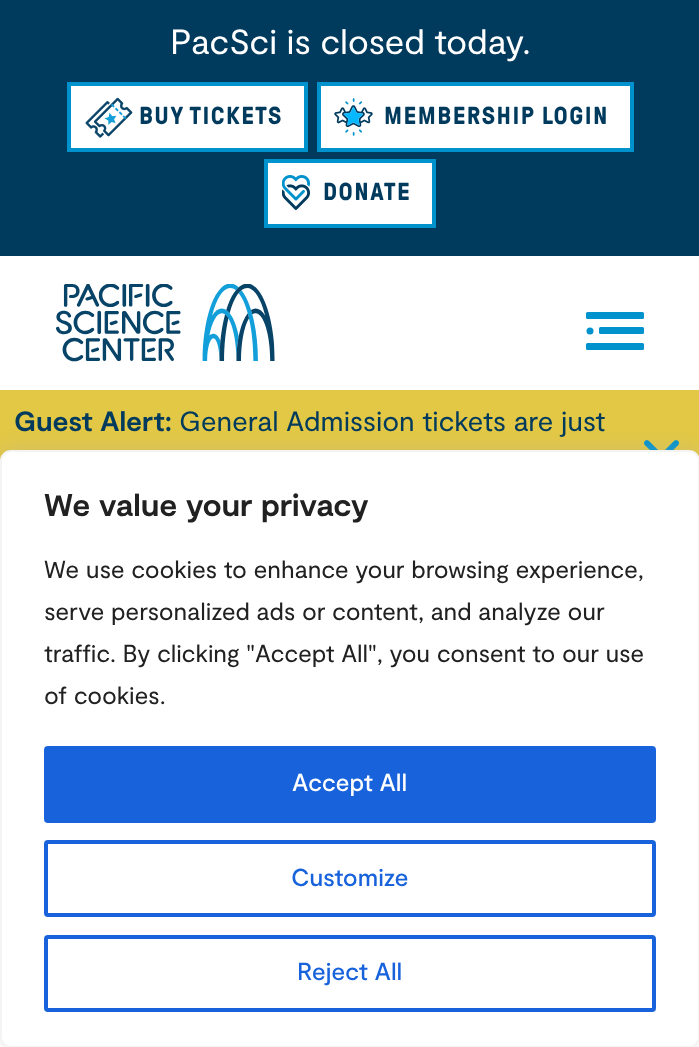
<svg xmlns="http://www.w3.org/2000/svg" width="699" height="1047">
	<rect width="100%" height="100%" fill="#FFFFFF" />
	<rect x="0" y="0" width="699" height="256" fill="#003A5D" />
	<text x="170" y="54" font-family="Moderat" font-size="35" fill="#FFFFFF">PacSci is closed today.</text>
	<rect x="71" y="86" width="233" height="62" fill="#FFFFFF" />
	<image x="85" y="97" width="48" height="41" href="assets/img1.png" />
	<rect x="69" y="84" width="237" height="66" fill="none" stroke="#0092CC" stroke-width="4" />
	<text x="139" y="124" font-family="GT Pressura" font-size="24.5" font-weight="700" letter-spacing="1.5" fill="#003A5D">BUY TICKETS</text>
	<rect x="321" y="86" width="309" height="62" fill="#FFFFFF" />
	<image x="334" y="98" width="39" height="38" href="assets/img2.png" />
	<rect x="319" y="84" width="313" height="66" fill="none" stroke="#0092CC" stroke-width="4" />
	<text x="384" y="124" font-family="GT Pressura" font-size="24.5" font-weight="700" letter-spacing="1.5" fill="#003A5D">MEMBERSHIP LOGIN</text>
	<rect x="268" y="163" width="164" height="61" fill="#FFFFFF" />
	<image x="282" y="175" width="28" height="35" href="assets/img3.png" />
	<rect x="266" y="161" width="168" height="65" fill="none" stroke="#0092CC" stroke-width="4" />
	<text x="323" y="200" font-family="GT Pressura" font-size="24.5" font-weight="700" letter-spacing="1.5" fill="#003A5D">DONATE</text>
	<image x="56" y="284" width="219" height="78" href="assets/img4.png" />
	<circle cx="590" cy="331" r="3.5" fill="#0092CC" />
	<rect x="599" y="327" width="45" height="7" rx="1.5" fill="#0092CC" />
	<rect x="586" y="343" width="58" height="7" rx="1.5" fill="#0092CC" />
	<rect x="586" y="312" width="58" height="7" rx="1.5" fill="#0092CC" />
	<rect x="0" y="390" width="699" height="71" fill="#E3C845" />
	<text x="14" y="431" font-family="Moderat" font-size="28" font-weight="700" fill="#003A5D">Guest Alert:</text>
	<text x="179" y="431" font-family="Moderat" font-size="28" fill="#003A5D">General Admission tickets are just</text>
	<image x="644" y="440" width="35" height="10" href="assets/img5.png" />
	<rect x="0" y="448" width="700" height="599" rx="11" fill="#ACABAB" fill-opacity="0.3" filter="blur(9px)" />
	<rect x="1" y="451" width="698" height="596" rx="10" fill="#FFFFFF" stroke="#F4F4F4" stroke-width="2" />
	<text x="44" y="516" font-family="Moderat" font-size="31.5" font-weight="700" fill="#212121">We value your privacy</text>
	<g font-family="Moderat" font-size="24.5" fill="#212121">
		<text x="44" y="578">We use cookies to enhance your browsing experience,</text>
		<text x="44" y="620">serve personalized ads or content, and analyze our</text>
		<text x="44" y="662">traffic. By clicking "Accept All", you consent to our use</text>
		<text x="44" y="704">of cookies.</text>
	</g>
	<rect x="46" y="748" width="608" height="73" rx="2" fill="#1863DC" stroke="#1863DC" stroke-width="4" />
	<text x="292" y="791" font-family="Moderat" font-size="24.5" font-weight="500" fill="#FFFFFF">Accept All</text>
	<rect x="46" y="842" width="608" height="73" rx="2" fill="none" stroke="#1863DC" stroke-width="4" />
	<text x="291" y="886" font-family="Moderat" font-size="24.5" font-weight="500" fill="#1863DC">Customize</text>
	<rect x="46" y="937" width="608" height="73" rx="2" fill="none" stroke="#1863DC" stroke-width="4" />
	<text x="297" y="980" font-family="Moderat" font-size="24.5" font-weight="500" fill="#1863DC">Reject All</text>
</svg>
